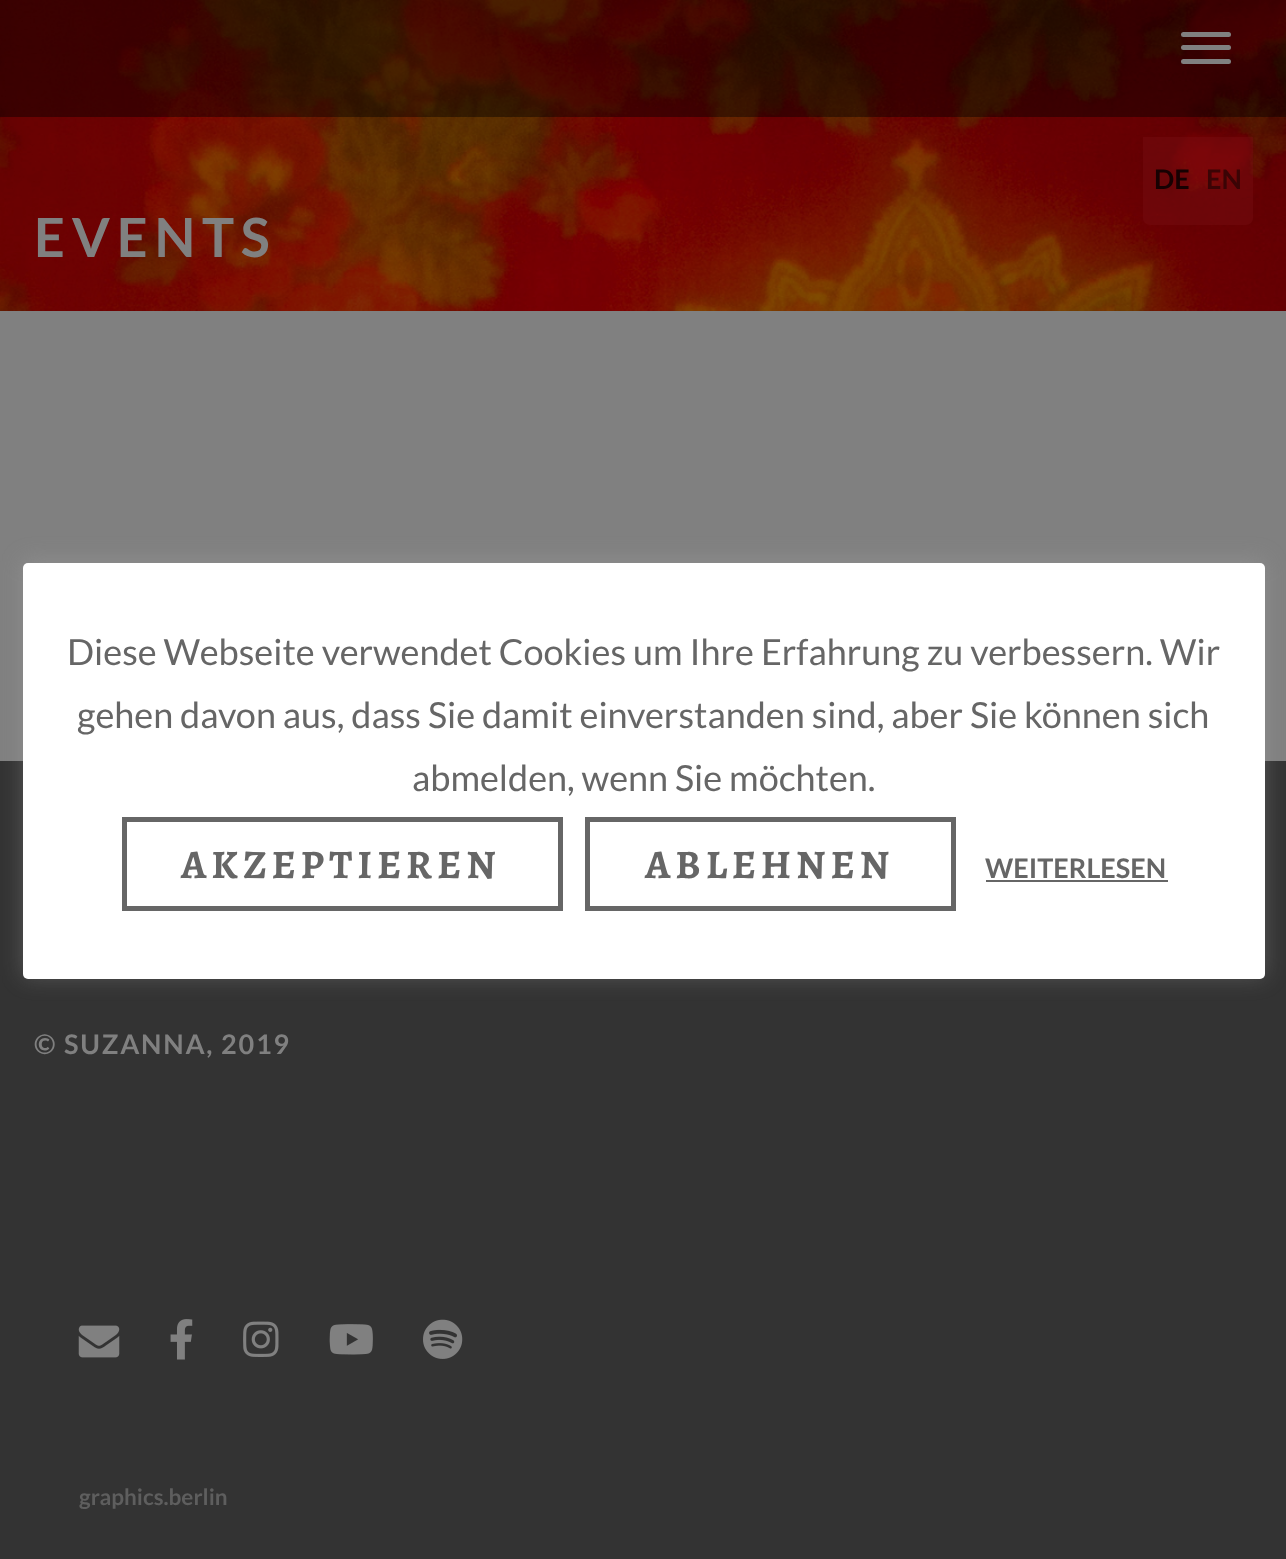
<svg xmlns="http://www.w3.org/2000/svg" width="1286" height="1559">
	<rect width="100%" height="100%" fill="#808080" />
	<image x="0" y="0" width="1286" height="311" href="assets/img1.png" />
	<rect x="0" y="0" width="1286" height="117" fill="#000000" fill-opacity="0.42" />
	<rect x="1181" y="32" width="50" height="5" rx="2.5" fill="#808080" />
	<rect x="1181" y="45" width="50" height="5" rx="2.5" fill="#808080" />
	<rect x="1181" y="59" width="50" height="5" rx="2.5" fill="#808080" />
	<path d="M1143 137H1253V218C1253 222 1250 225 1246 225H1150C1146 225 1143 222 1143 218Z" fill="#770E12" fill-opacity="0.42" />
	<text x="1154" y="189" font-family="Lato" font-size="27" font-weight="700" fill="#160102">DE</text>
	<text x="1206" y="189" font-family="Lato" font-size="27" font-weight="700" fill="#3A0405">EN</text>
	<text x="34" y="257" font-family="Lato" font-size="54" font-weight="700" letter-spacing="6.75" fill="#808080">EVENTS</text>
	<rect x="0" y="761" width="1286" height="798" fill="#333333" />
	<text x="34" y="1054" font-family="Lato" font-size="27" font-weight="700" letter-spacing="1.75" fill="#808080">© SUZANNA, 2019</text>
	<image x="78" y="1325" width="42" height="33" href="assets/img2.png" />
	<image x="170" y="1319" width="23" height="41" href="assets/img3.png" />
	<image x="243" y="1321" width="36" height="36" href="assets/img4.png" />
	<image x="329" y="1324" width="44" height="31" href="assets/img5.png" />
	<image x="423" y="1319" width="40" height="40" href="assets/img6.png" />
	<text x="79" y="1505" font-family="Lato" font-size="22.5" font-weight="700" fill="#5E5E5E">graphics.berlin</text>
	<rect x="23" y="560" width="1242" height="417" rx="5" fill="#ACABAB" fill-opacity="0.3" filter="blur(11px)" />
	<rect x="23" y="563" width="1242" height="416" rx="5" fill="#FFFFFF" />
	<g font-family="Lato" font-size="36" fill="#666666">
		<text x="67" y="665">Diese Webseite verwendet Cookies um Ihre Erfahrung zu verbessern. Wir</text>
		<text x="77" y="728">gehen davon aus, dass Sie damit einverstanden sind, aber Sie können sich</text>
		<text x="412" y="791">abmelden, wenn Sie möchten.</text>
	</g>
	<rect x="124.5" y="819.5" width="436" height="89" fill="none" stroke="#666666" stroke-width="5" />
	<text x="181" y="878" font-family="Alegreya" font-size="40.5" font-weight="700" letter-spacing="5" fill="#666666">AKZEPTIEREN</text>
	<rect x="587.5" y="819.5" width="366" height="89" fill="none" stroke="#666666" stroke-width="5" />
	<text x="645" y="878" font-family="Alegreya" font-size="40.5" font-weight="700" letter-spacing="5" fill="#666666">ABLEHNEN</text>
	<text x="985" y="878" font-family="Lato" font-size="27" font-weight="700" fill="#666666">WEITERLESEN</text>
	<rect x="986" y="880" width="182" height="2" fill="#666666" />
</svg>
